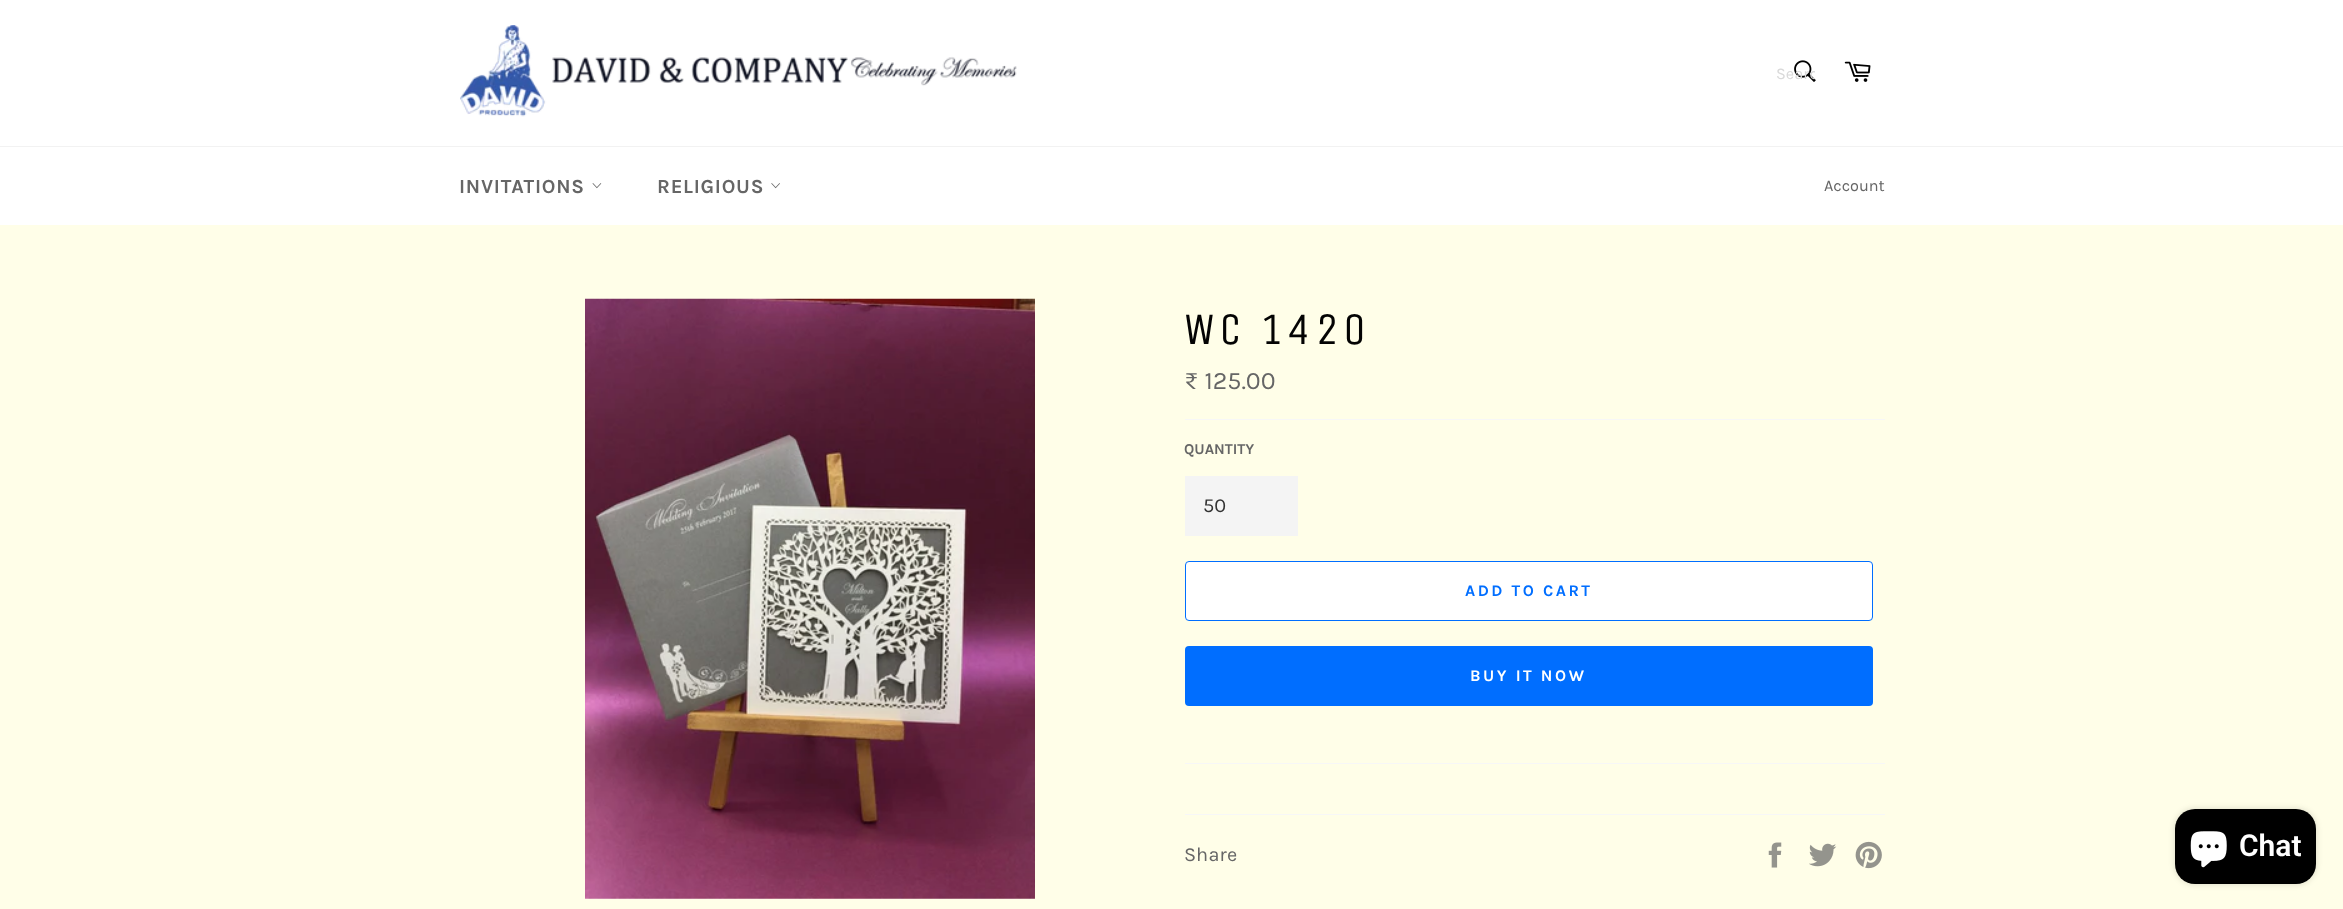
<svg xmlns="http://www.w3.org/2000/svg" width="2343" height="909">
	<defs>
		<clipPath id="clip1"><rect x="1775" y="64" width="40" height="19" /></clipPath>
	</defs>
	<rect width="100%" height="100%" fill="#FFFFFF" />
	<image x="460" y="25" width="557" height="92" href="assets/img1.png" />
	<image x="1794" y="60" width="22" height="22" href="assets/img2.png" />
	<g clip-path="url(#clip1)">
		<text x="1776" y="79" font-family="Karla" font-size="16.25" fill="#D9D9D9">Searc</text>
	</g>
	<image x="1844" y="61" width="27" height="21" href="assets/img3.png" />
	<rect x="0" y="146" width="2343" height="1" fill="#F2F2F2" />
	<text x="459" y="193" font-family="Karla" font-size="20" font-weight="700" letter-spacing="0.75" fill="#666666">INVITATIONS</text>
	<image x="592" y="183" width="10" height="6" href="assets/img4.png" />
	<text x="657" y="193" font-family="Karla" font-size="20" font-weight="700" letter-spacing="0.75" fill="#666666">RELIGIOUS</text>
	<image x="771" y="183" width="9" height="6" href="assets/img5.png" />
	<text x="1824" y="191" font-family="Karla" font-size="16.25" fill="#666666">Account</text>
	<rect x="0" y="225" width="2343" height="684" fill="#FFFEE8" />
	<image x="585" y="298" width="450" height="601" href="assets/img6.png" />
	<text x="1184" y="344" font-family="Unica One" font-size="45" letter-spacing="4.5" fill="#030303">WC 1420</text>
	<text x="1184" y="389" font-family="Karla" font-size="25" fill="#666666">₹ 125.00</text>
	<rect x="1185" y="419" width="700" height="1" fill="#F7F7F7" />
	<text x="1184" y="454" font-family="Karla" font-size="15" font-weight="700" fill="#666666">QUANTITY</text>
	<rect x="1185" y="476" width="113" height="60" fill="#F4F4F4" />
	<text x="1203" y="512" font-family="Karla" font-size="20" fill="#333333">50</text>
	<rect x="1185.5" y="561.5" width="687" height="59" rx="3.5" fill="#FFFFFF" stroke="#006EFF" />
	<text x="1465" y="596" font-family="Karla" font-size="16.25" font-weight="700" letter-spacing="2.5" fill="#006EFF">ADD TO CART</text>
	<rect x="1185" y="646" width="688" height="60" rx="4" fill="#006EFF" />
	<text x="1470" y="681" font-family="Karla" font-size="16.25" font-weight="700" letter-spacing="2.5" fill="#FFFFFF">BUY IT NOW</text>
	<rect x="1185" y="763" width="700" height="1" fill="#F7F7F7" />
	<rect x="1185" y="814" width="700" height="1" fill="#F7F7F7" />
	<text x="1184" y="861" font-family="Karla" font-size="20" fill="#666666">Share</text>
	<image x="1768" y="842" width="14" height="26" href="assets/img7.png" />
	<image x="1809" y="843" width="28" height="24" href="assets/img8.png" />
	<image x="1855" y="841" width="27" height="28" href="assets/img9.png" />
	<rect x="2175" y="809" width="141" height="75" rx="20" fill="#000000" fill-opacity="0.15" filter="blur(3px)" />
	<rect x="2175" y="809" width="141" height="75" rx="20" fill="#000000" />
	<image x="2190" y="831" width="37" height="37" href="assets/img10.png" />
	<text x="2239" y="856" font-family="Roboto" font-size="30" font-weight="600" fill="#FFFFFF">Chat</text>
</svg>
